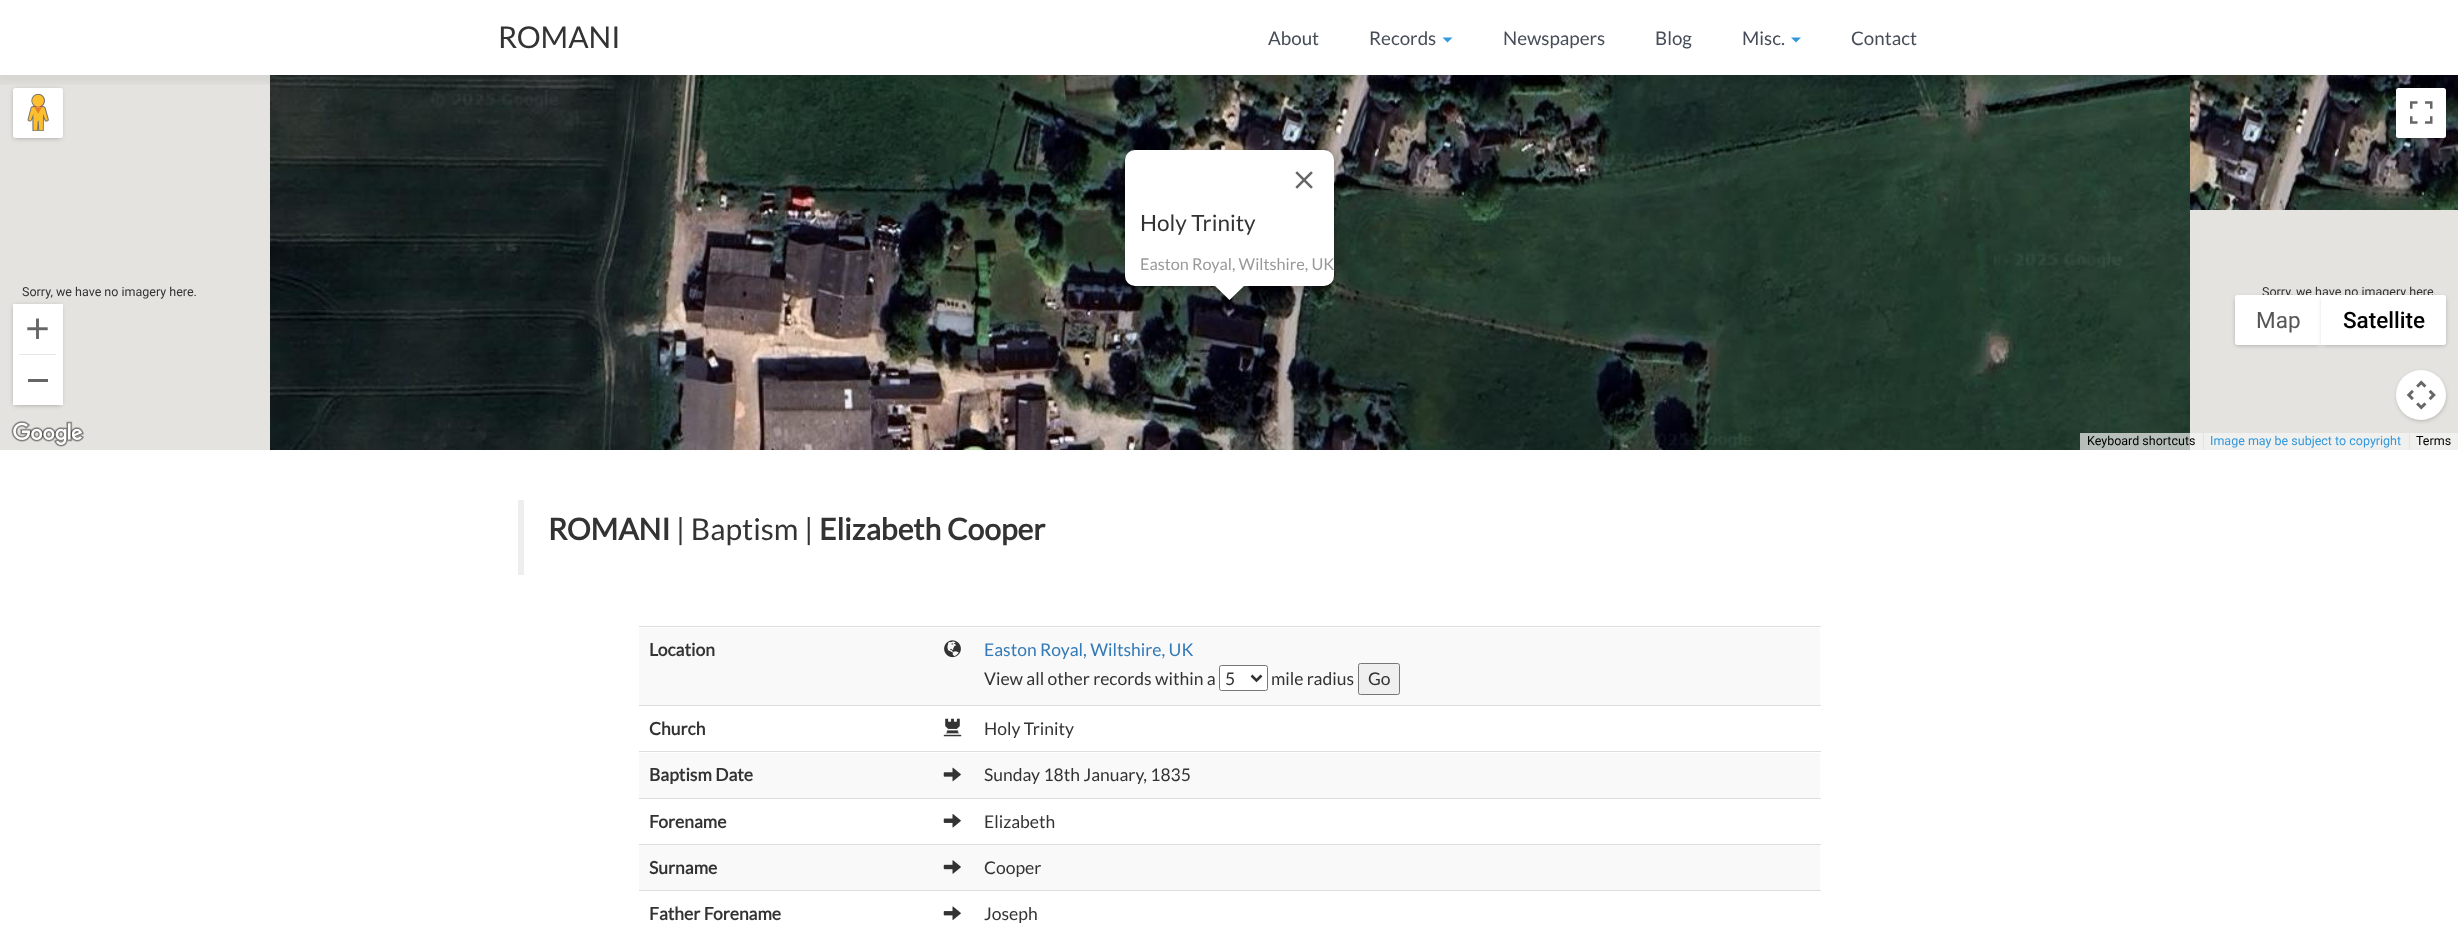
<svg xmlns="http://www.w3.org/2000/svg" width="2458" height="934">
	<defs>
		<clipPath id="clip1"><rect x="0" y="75" width="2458" height="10" /></clipPath>
	</defs>
	<rect width="100%" height="100%" fill="#FFFFFF" />
	<rect x="0" y="75" width="2458" height="375" fill="#E5E3DF" />
	<rect x="14" y="90" width="47" height="48" rx="1" fill="#000000" fill-opacity="0.3" filter="blur(2.5px)" />
	<rect x="13" y="88" width="50" height="50" rx="2.5" fill="#FFFFFF" />
	<image x="27" y="94" width="22" height="37" href="assets/img1.png" />
	<image x="2190" y="75" width="268" height="135" href="assets/img10.png" />
	<rect x="2398" y="90" width="47" height="48" rx="1" fill="#000000" fill-opacity="0.3" filter="blur(2.5px)" />
	<rect x="2396" y="88" width="50" height="50" rx="2.5" fill="#FFFFFF" />
	<image x="270" y="75" width="320" height="135" href="assets/img4.png" />
	<image x="590" y="75" width="320" height="135" href="assets/img5.png" />
	<image x="910" y="75" width="320" height="135" href="assets/img6.png" />
	<image x="1230" y="75" width="320" height="135" href="assets/img7.png" />
	<image x="1550" y="75" width="320" height="135" href="assets/img8.png" />
	<image x="1870" y="75" width="320" height="135" href="assets/img9.png" />
	<g clip-path="url(#clip1)">
		<rect x="-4" y="0" width="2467" height="83" fill="#000000" fill-opacity="0.06" filter="blur(4px)" />
	</g>
	<text x="498" y="48" font-family="Lato" font-size="30" fill="#333333">ROMANI</text>
	<g font-family="Lato" font-size="18.75" fill="#464D58">
		<text x="1268" y="45">About</text>
		<text x="1369" y="45">Records</text>
	</g>
	<path d="M1442.5 37.5H1452.5L1447.5 42.5Z" fill="#3498DB" />
	<g font-family="Lato" font-size="18.75" fill="#464D58">
		<text x="1503" y="45">Newspapers</text>
		<text x="1655" y="45">Blog</text>
		<text x="1742" y="45">Misc.</text>
	</g>
	<path d="M1791 37.5H1801L1796 42.5Z" fill="#3498DB" />
	<text x="1851" y="45" font-family="Lato" font-size="18.75" fill="#464D58">Contact</text>
	<image x="2410" y="101" width="23" height="23" href="assets/img2.png" />
	<image x="910" y="210" width="320" height="240" href="assets/img13.png" />
	<image x="1230" y="210" width="320" height="240" href="assets/img14.png" />
	<rect x="1124" y="151" width="211" height="139" rx="11" fill="#000000" fill-opacity="0.3" filter="blur(4.5px)" />
	<rect x="1125" y="150" width="209" height="136" rx="10" fill="#FFFFFF" />
	<image x="1295" y="171" width="18" height="18" href="assets/img3.png" />
	<text x="1140" y="231" font-family="Lato" font-size="22.5" fill="#333333">Holy Trinity</text>
	<text x="1140" y="270" font-family="Lato" font-size="16.25" fill="#999999">Easton Royal, Wiltshire, UK</text>
	<path d="M1215 285V286L1229.5 300L1245 285Z" fill="#FFFFFF" />
	<text x="22" y="296" font-family="Roboto" font-size="12.5" fill="#333333">Sorry, we have no imagery here.</text>
	<image x="270" y="210" width="320" height="240" href="assets/img11.png" />
	<image x="590" y="210" width="320" height="240" href="assets/img12.png" />
	<image x="1550" y="210" width="320" height="240" href="assets/img15.png" />
	<image x="1870" y="210" width="320" height="240" href="assets/img16.png" />
	<text x="2262" y="296" font-family="Roboto" font-size="12.5" fill="#333333">Sorry, we have no imagery here.</text>
	<rect x="14" y="306" width="47" height="99" rx="1" fill="#000000" fill-opacity="0.3" filter="blur(2.5px)" />
	<rect x="13" y="304" width="50" height="101" fill="#FFFFFF" />
	<image x="27" y="318" width="21" height="21" href="assets/img17.png" />
	<rect x="19" y="354" width="37" height="1" fill="#E6E6E6" />
	<rect x="28" y="379" width="20" height="3" fill="#666666" />
	<rect x="2236" y="298" width="84" height="47" rx="1" fill="#000000" fill-opacity="0.3" filter="blur(2.5px)" />
	<path d="M2237.5 295H2321V345H2237.5C2236 345 2235 344 2235 342.5V297.5C2235 296 2236 295 2237.5 295Z" fill="#FFFFFF" />
	<text x="2256" y="328" font-family="Roboto" font-size="22.5" fill="#565656">Map</text>
	<rect x="2323" y="298" width="122" height="47" rx="1" fill="#000000" fill-opacity="0.3" filter="blur(2.5px)" />
	<path d="M2321 295H2443.5C2445 295 2446 296 2446 297.5V342.5C2446 344 2445 345 2443.5 345H2321Z" fill="#FFFFFF" />
	<text x="2343" y="328" font-family="Roboto" font-size="22.5" font-weight="500" fill="#000000">Satellite</text>
	<rect x="2398" y="373" width="47" height="47" rx="23.5" fill="#000000" fill-opacity="0.3" filter="blur(2.5px)" />
	<circle cx="2421" cy="395" r="25" fill="#FFFFFF" />
	<image x="2406" y="380" width="30" height="30" href="assets/img18.png" />
	<image x="11" y="421" width="73" height="26" href="assets/img19.png" />
	<rect x="2080" y="433" width="123" height="17" fill="#F5F5F5" fill-opacity="0.7" />
	<text x="2087" y="445" font-family="Roboto" font-size="12.5" fill="#000000">Keyboard shortcuts</text>
	<rect x="2204" y="433" width="205" height="17" fill="#F0F0EE" />
	<text x="2210" y="445" font-family="Roboto" font-size="12.5" fill="#3498DB">Image may be subject to copyright</text>
	<rect x="2410" y="433" width="48" height="17" fill="#F0F0EE" />
	<text x="2416" y="445" font-family="Roboto" font-size="12.5" fill="#000000">Terms</text>
	<rect x="518" y="500" width="6" height="75" fill="#EEEEEE" />
	<text x="548" y="540" font-family="Lato" font-size="30" font-weight="700" fill="#333333">ROMANI</text>
	<text x="676" y="540" font-family="Lato" font-size="30" fill="#333333">| Baptism |</text>
	<text x="819" y="540" font-family="Lato" font-size="30" font-weight="700" fill="#333333">Elizabeth Cooper</text>
	<rect x="639" y="628" width="1181" height="77" fill="#F9F9F9" />
	<text x="649" y="656" font-family="Lato" font-size="17.5" font-weight="700" fill="#333333">Location</text>
	<image x="944" y="640" width="17" height="18" href="assets/img20.png" />
	<rect x="639" y="626" width="1182" height="1" fill="#DDDDDD" />
	<text x="984" y="656" font-family="Lato" font-size="17.5" fill="#337AB7">Easton Royal, Wiltshire, UK</text>
	<text x="984" y="685" font-family="Lato" font-size="17.5" fill="#333333">View all other records within a</text>
	<rect x="1219.5" y="665.5" width="48" height="25" rx="2" fill="#FFFFFF" stroke="#767676" />
	<path d="M1251.5 675.5L1256.5 680.5L1261.5 675.5" fill="none" stroke="#333333" stroke-width="2.5" />
	<g font-family="Lato" font-size="17.5" fill="#333333">
		<text x="1225" y="685">5</text>
		<text x="1271" y="685">mile radius</text>
	</g>
	<rect x="1358.5" y="663.5" width="41" height="31" rx="2" fill="#EFEFEF" stroke="#767676" />
	<text x="1368" y="685" font-family="Lato" font-size="17.5" fill="#333333">Go</text>
	<text x="649" y="735" font-family="Lato" font-size="17.5" font-weight="700" fill="#333333">Church</text>
	<image x="943" y="718" width="19" height="19" href="assets/img21.png" />
	<rect x="639" y="705" width="1182" height="1" fill="#DDDDDD" />
	<text x="984" y="735" font-family="Lato" font-size="17.5" fill="#333333">Holy Trinity</text>
	<rect x="639" y="753" width="1181" height="45" fill="#F9F9F9" />
	<text x="649" y="781" font-family="Lato" font-size="17.5" font-weight="700" fill="#333333">Baptism Date</text>
	<image x="943" y="767" width="18" height="15" href="assets/img22.png" />
	<rect x="639" y="751" width="1182" height="1" fill="#DDDDDD" />
	<text x="984" y="781" font-family="Lato" font-size="17.5" fill="#333333">Sunday 18th January, 1835</text>
	<text x="649" y="828" font-family="Lato" font-size="17.5" font-weight="700" fill="#333333">Forename</text>
	<image x="943" y="814" width="18" height="14" href="assets/img23.png" />
	<rect x="639" y="798" width="1182" height="1" fill="#DDDDDD" />
	<text x="984" y="828" font-family="Lato" font-size="17.5" fill="#333333">Elizabeth</text>
	<rect x="639" y="845" width="1181" height="45" fill="#F9F9F9" />
	<text x="649" y="874" font-family="Lato" font-size="17.5" font-weight="700" fill="#333333">Surname</text>
	<image x="943" y="860" width="18" height="14" href="assets/img24.png" />
	<rect x="639" y="844" width="1182" height="1" fill="#DDDDDD" />
	<text x="984" y="874" font-family="Lato" font-size="17.5" fill="#333333">Cooper</text>
	<text x="649" y="920" font-family="Lato" font-size="17.5" font-weight="700" fill="#333333">Father Forename</text>
	<image x="943" y="906" width="18" height="14" href="assets/img25.png" />
	<rect x="639" y="890" width="1182" height="1" fill="#DDDDDD" />
	<text x="984" y="920" font-family="Lato" font-size="17.5" fill="#333333">Joseph</text>
</svg>
